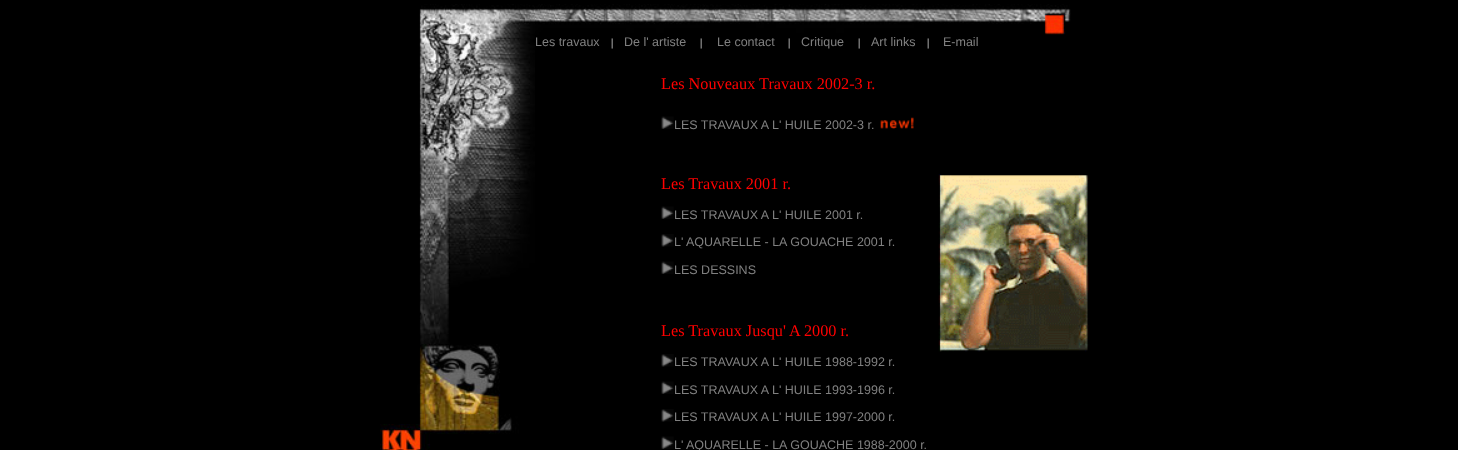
<svg xmlns="http://www.w3.org/2000/svg" width="1458" height="450">
	<rect width="100%" height="100%" fill="#000000" />
	<image x="380" y="4" width="155" height="446" href="assets/img1.png" />
	<image x="535" y="4" width="536" height="31" href="assets/img2.png" />
	<text x="535" y="46" font-family="Liberation Sans" font-size="12.5" fill="#808080">Les travaux</text>
	<text x="611" y="46" font-family="Liberation Serif" font-size="11" fill="#FFFFFF">|</text>
	<text x="624" y="46" font-family="Liberation Sans" font-size="12.5" fill="#808080">De l' artiste</text>
	<text x="700" y="46" font-family="Liberation Serif" font-size="11" fill="#FFFFFF">|</text>
	<text x="717" y="46" font-family="Liberation Sans" font-size="12.5" fill="#808080">Le contact</text>
	<text x="788" y="46" font-family="Liberation Serif" font-size="11" fill="#FFFFFF">|</text>
	<text x="801" y="46" font-family="Liberation Sans" font-size="12.5" fill="#808080">Critique</text>
	<text x="858" y="46" font-family="Liberation Serif" font-size="11" fill="#FFFFFF">|</text>
	<text x="871" y="46" font-family="Liberation Sans" font-size="12.5" fill="#808080">Art links</text>
	<text x="927" y="46" font-family="Liberation Serif" font-size="11" fill="#FFFFFF">|</text>
	<text x="943" y="46" font-family="Liberation Sans" font-size="12.5" fill="#808080">E-mail</text>
	<text x="661" y="89" font-family="Liberation Serif" font-size="16.25" fill="#FF0000">Les Nouveaux Travaux 2002-3 r.</text>
	<image x="661" y="116" width="13" height="13" href="assets/img3.png" />
	<text x="674" y="129" font-family="Liberation Sans" font-size="12.5" fill="#808080">LES TRAVAUX A L' HUILE 2002-3 r.</text>
	<image x="880" y="117" width="34" height="12" href="assets/img4.png" />
	<text x="661" y="189" font-family="Liberation Serif" font-size="16.25" fill="#FF0000">Les Travaux 2001 r.</text>
	<image x="938" y="174" width="151" height="178" href="assets/img5.png" />
	<image x="661" y="206" width="13" height="13" href="assets/img3.png" />
	<text x="674" y="219" font-family="Liberation Sans" font-size="12.5" fill="#808080">LES TRAVAUX A L' HUILE 2001 r.</text>
	<image x="661" y="234" width="13" height="13" href="assets/img6.png" />
	<g font-family="Liberation Sans" font-size="12.5" fill="#808080">
		<text x="674" y="246">L'</text>
		<text x="686" y="246">AQUARELLE - LA GOUACHE 2001 r.</text>
	</g>
	<image x="661" y="261" width="13" height="13" href="assets/img3.png" />
	<text x="674" y="274" font-family="Liberation Sans" font-size="12.5" fill="#808080">LES DESSINS</text>
	<text x="661" y="336" font-family="Liberation Serif" font-size="16.25" fill="#FF0000">Les Travaux Jusqu' A 2000 r.</text>
	<image x="661" y="354" width="13" height="13" href="assets/img6.png" />
	<text x="674" y="366" font-family="Liberation Sans" font-size="12.5" fill="#808080">LES TRAVAUX A L' HUILE 1988-1992 r.</text>
	<image x="661" y="381" width="13" height="13" href="assets/img3.png" />
	<text x="674" y="394" font-family="Liberation Sans" font-size="12.5" fill="#808080">LES TRAVAUX A L' HUILE 1993-1996 r.</text>
	<image x="661" y="409" width="13" height="13" href="assets/img6.png" />
	<text x="674" y="421" font-family="Liberation Sans" font-size="12.5" fill="#808080">LES TRAVAUX A L' HUILE 1997-2000 r.</text>
	<image x="661" y="436" width="13" height="13" href="assets/img3.png" />
	<g font-family="Liberation Sans" font-size="12.5" fill="#808080">
		<text x="674" y="449">L'</text>
		<text x="686" y="449">AQUARELLE - LA GOUACHE 1988-2000 r.</text>
	</g>
</svg>
